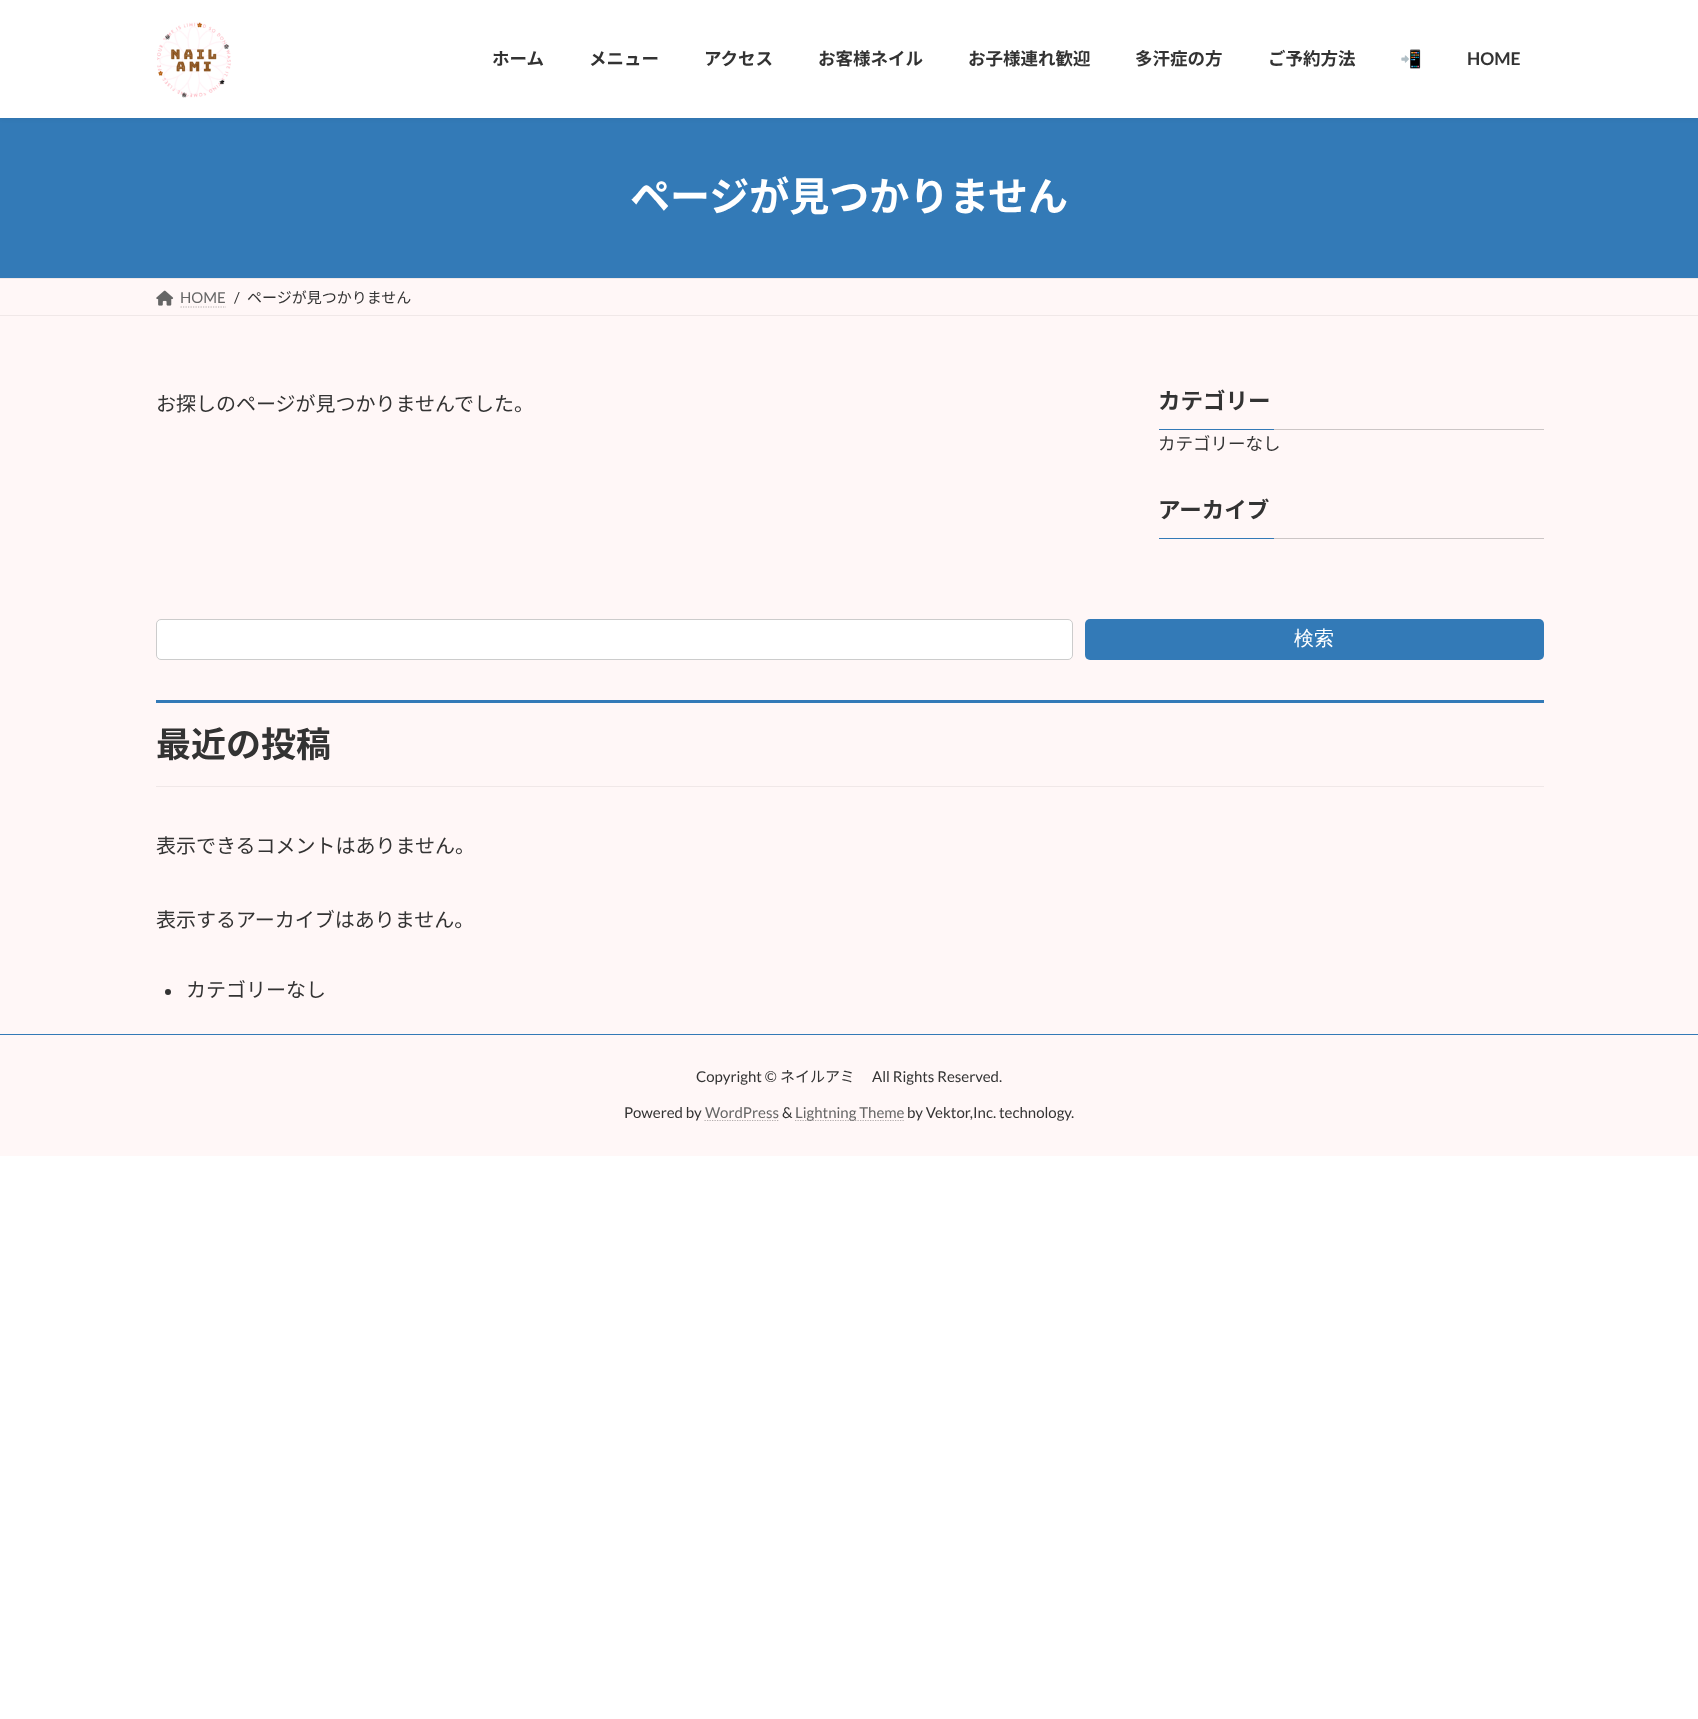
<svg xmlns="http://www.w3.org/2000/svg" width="1698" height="1719">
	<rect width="100%" height="100%" fill="#FFFFFF" />
	<rect x="0" y="279" width="1698" height="877" fill="#FFF7F7" />
	<rect x="0" y="118" width="1698" height="160" fill="#337AB7" />
	<rect x="0" y="1" width="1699" height="118" fill="#000000" fill-opacity="0.05" filter="blur(2px)" />
	<rect x="0" y="0" width="1698" height="118" fill="#FFFFFF" />
	<image x="157" y="22" width="74" height="76" href="assets/img1.png" />
	<g font-family="Noto Sans JP" font-size="17.5" font-weight="700" fill="#333333">
		<text x="492" y="65">ホーム</text>
		<text x="589" y="65">メニュー</text>
		<text x="704" y="65">アクセス</text>
		<text x="818" y="65">お客様ネイル</text>
		<text x="968" y="65">お子様連れ歓迎</text>
		<text x="1135" y="65">多汗症の方</text>
		<text x="1268" y="65">ご予約方法</text>
	</g>
	<text x="1400" y="65" font-family="Noto Color Emoji" font-size="17.5" font-weight="700" fill="#333333">📲</text>
	<text x="1467" y="65" font-family="Lato" font-size="17.5" font-weight="700" fill="#333333">HOME</text>
	<text x="630" y="211" font-family="Noto Sans JP" font-size="40" font-weight="700" fill="#FFFFFF">ページが見つかりません</text>
	<rect x="0" y="278" width="1698" height="1" fill="#F0E8E8" />
	<rect x="0" y="315" width="1698" height="1" fill="#F0E8E8" />
	<image x="156" y="290" width="18" height="16" href="assets/img2.png" />
	<text x="180" y="303" font-family="Lato" font-size="15" fill="#666666">HOME</text>
	<path d="M180.5 307H226" fill="none" stroke="#B3ADAD" stroke-width="1.2" stroke-dasharray="1.25 1.25" />
	<text x="234" y="303" font-family="Lato" font-size="15" fill="#333333">/</text>
	<text x="247" y="303" font-family="Noto Sans JP" font-size="15" fill="#333333">ページが見つかりません</text>
	<text x="156" y="411" font-family="Noto Sans JP" font-size="20" fill="#333333">お探しのページが見つかりませんでした。</text>
	<rect x="1274" y="429" width="270" height="1" fill="#CCC6C6" />
	<text x="1158" y="409" font-family="Noto Sans JP" font-size="22.5" font-weight="700" fill="#333333">カテゴリー</text>
	<rect x="1159" y="429" width="115" height="1" fill="#337AB7" />
	<text x="1158" y="450" font-family="Noto Sans JP" font-size="17.5" fill="#333333">カテゴリーなし</text>
	<rect x="1274" y="538" width="270" height="1" fill="#CCC6C6" />
	<text x="1158" y="518" font-family="Noto Sans JP" font-size="22.5" font-weight="700" fill="#333333">アーカイブ</text>
	<rect x="1159" y="538" width="115" height="1" fill="#337AB7" />
	<rect x="156.5" y="619.5" width="916" height="40" rx="4.5" fill="#FFFFFF" stroke="#CCCCCC" />
	<rect x="1085" y="619" width="459" height="41" rx="5" fill="#337AB7" />
	<text x="1294" y="645" font-family="WenQuanYi Zen Hei" font-size="20" font-weight="500" fill="#FFFFFF">検索</text>
	<rect x="156" y="700" width="1388" height="3" fill="#337AB7" />
	<rect x="156" y="786" width="1388" height="1" fill="#F0E8E8" />
	<text x="156" y="757" font-family="Noto Sans JP" font-size="35" font-weight="700" fill="#333333">最近の投稿</text>
	<g font-family="Noto Sans JP" font-size="20" fill="#333333">
		<text x="156" y="853">表示できるコメントはありません。</text>
		<text x="156" y="927">表示するアーカイブはありません。</text>
	</g>
	<circle cx="168" cy="992" r="3" fill="#333333" />
	<text x="186" y="997" font-family="Noto Sans JP" font-size="20" fill="#333333">カテゴリーなし</text>
	<rect x="0" y="1034" width="1698" height="1" fill="#337AB7" />
	<text x="696" y="1082" font-family="Lato" font-size="15" fill="#333333">Copyright ©</text>
	<text x="780" y="1082" font-family="Noto Sans JP" font-size="15" fill="#333333">ネイルアミ</text>
	<g font-family="Lato" font-size="15" fill="#333333">
		<text x="872" y="1082">All Rights Reserved.</text>
		<text x="624" y="1118">Powered by</text>
	</g>
	<text x="705" y="1118" font-family="Lato" font-size="15" fill="#666666">WordPress</text>
	<path d="M704.5 1120.5H778.5" fill="none" stroke="#B3ADAD" stroke-width="1.2" stroke-dasharray="1.25 1.25" />
	<text x="782" y="1118" font-family="Lato" font-size="15" fill="#333333">&amp;</text>
	<path d="M795 1120.5H904.5" fill="none" stroke="#B3ADAD" stroke-width="1.2" stroke-dasharray="1.25 1.25" />
	<text x="795" y="1118" font-family="Lato" font-size="15" fill="#666666">Lightning Theme</text>
	<text x="907" y="1118" font-family="Lato" font-size="15" fill="#333333">by Vektor,Inc. technology.</text>
</svg>
